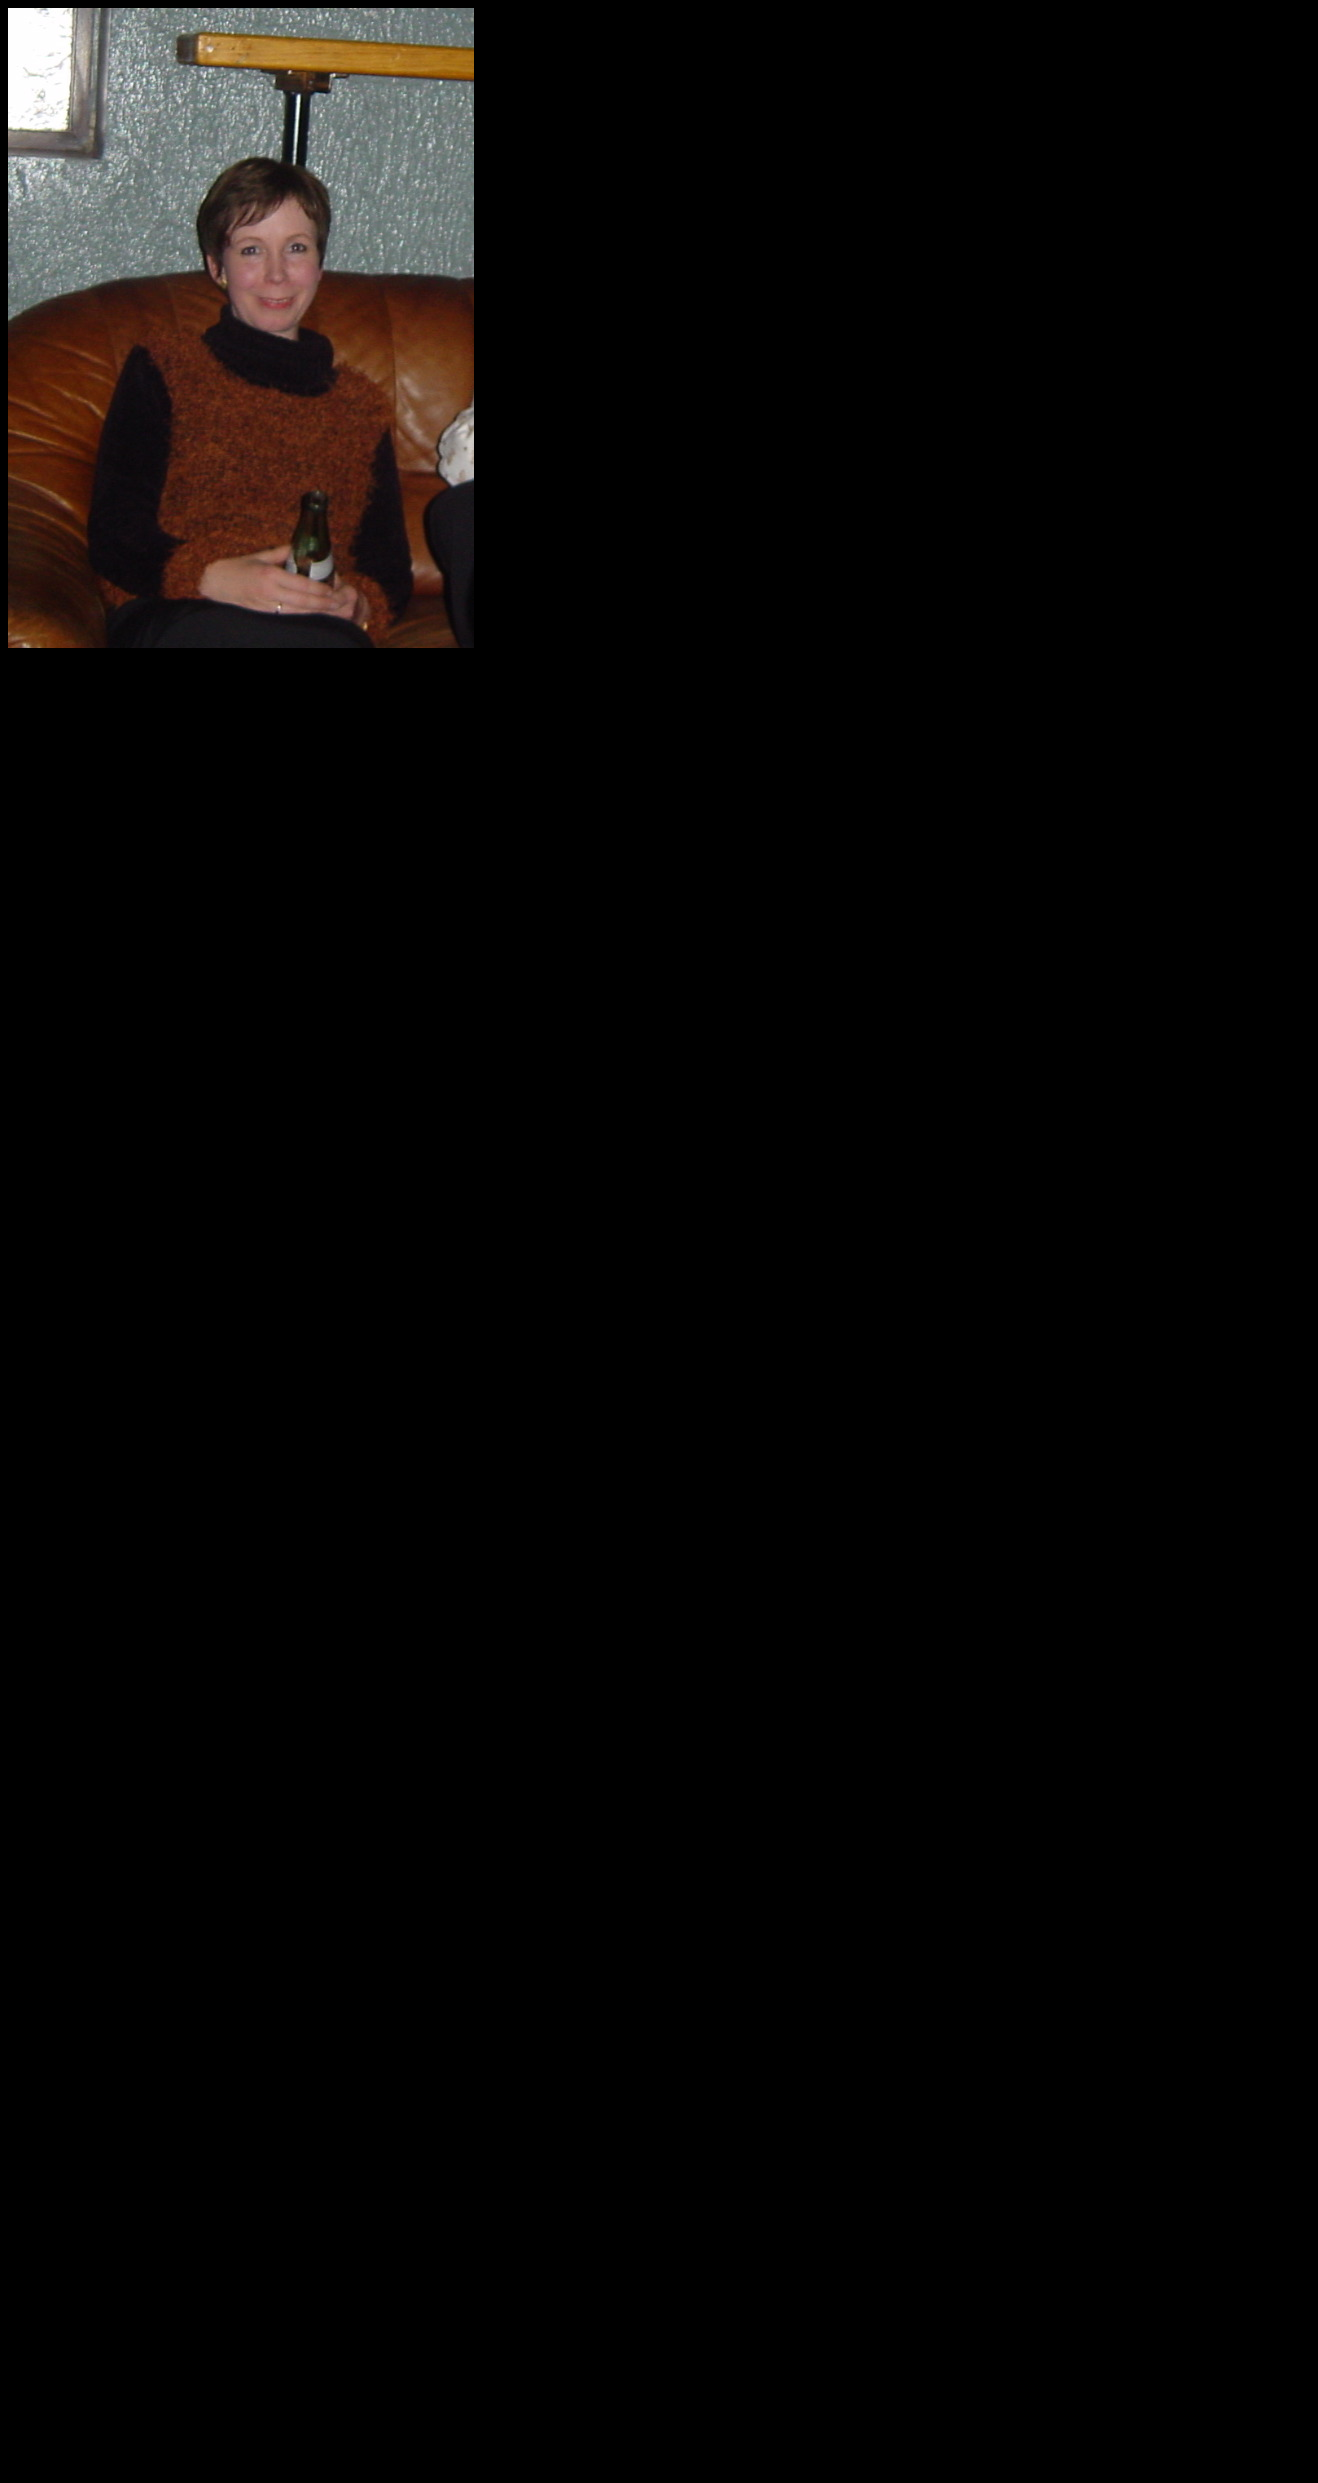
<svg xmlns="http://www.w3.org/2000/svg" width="1318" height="2483">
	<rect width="100%" height="100%" fill="#000000" />
	<image x="8" y="8" width="466" height="640" href="assets/img1.png" />
</svg>
